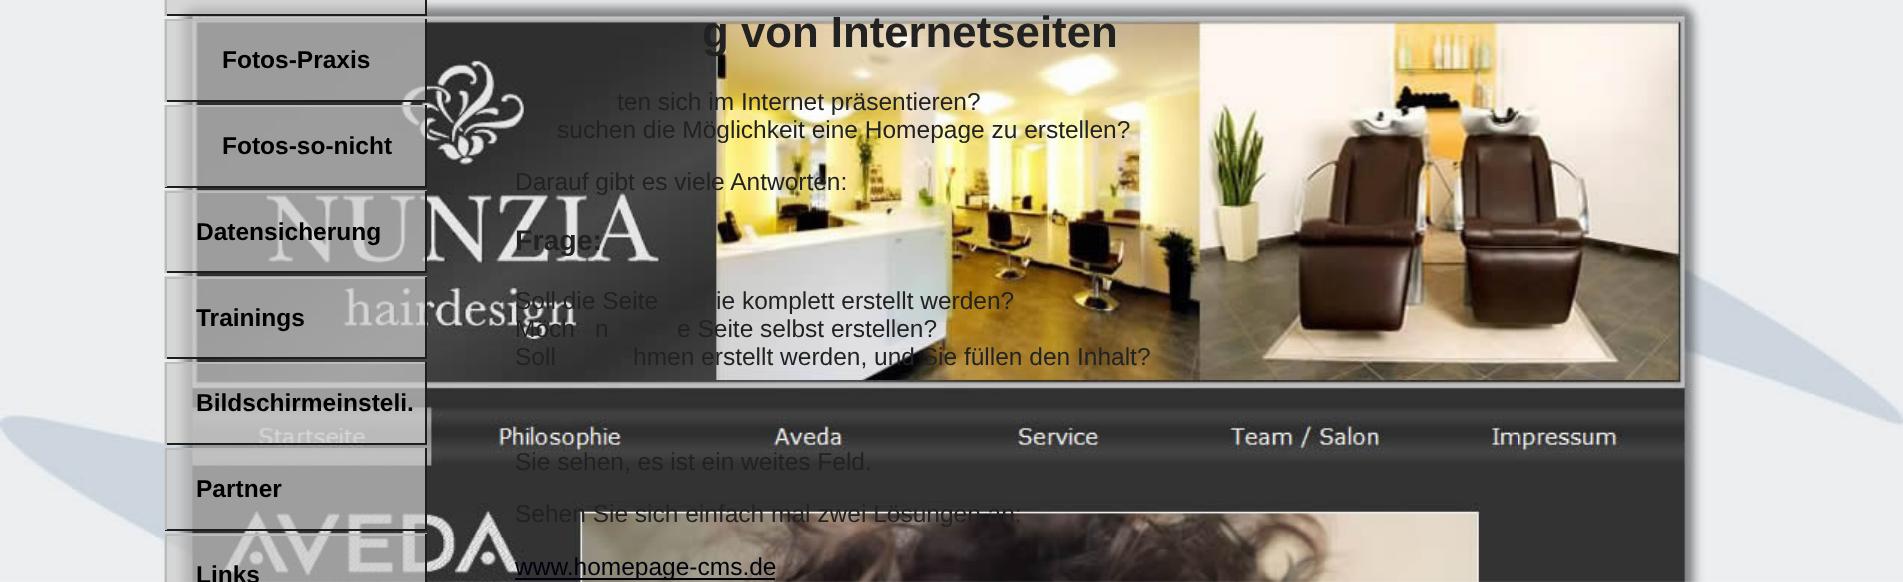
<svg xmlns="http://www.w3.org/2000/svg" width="1903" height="582">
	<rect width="100%" height="100%" fill="#FFFFFF" />
	<image x="0" y="0" width="1903" height="582" href="assets/img1.png" />
	<rect x="164" y="0" width="261" height="16" fill="#CCCCCC" fill-opacity="0.7" />
	<rect x="425" y="0" width="2" height="16" fill="#1D1D1D" />
	<rect x="165" y="14" width="262" height="2" fill="#1D1D1D" />
	<rect x="165" y="0" width="2" height="16" fill="#BBBBBB" />
	<rect x="164" y="19" width="261" height="83" fill="#CCCCCC" fill-opacity="0.7" />
	<rect x="165" y="19" width="262" height="2" fill="#BBBBBB" />
	<rect x="425" y="19" width="2" height="83" fill="#1D1D1D" />
	<rect x="165" y="100" width="262" height="2" fill="#1D1D1D" />
	<rect x="165" y="19" width="2" height="83" fill="#BBBBBB" />
	<text x="222" y="68" font-family="Liberation Sans" font-size="24.5" font-weight="700" fill="#000000">Fotos-Praxis</text>
	<rect x="164" y="105" width="261" height="83" fill="#CCCCCC" fill-opacity="0.7" />
	<rect x="165" y="105" width="262" height="2" fill="#BBBBBB" />
	<rect x="425" y="105" width="2" height="82" fill="#1D1D1D" />
	<rect x="165" y="186" width="262" height="2" fill="#1D1D1D" />
	<rect x="165" y="105" width="2" height="82" fill="#BBBBBB" />
	<text x="222" y="154" font-family="Liberation Sans" font-size="24.5" font-weight="700" fill="#000000">Fotos-so-nicht</text>
	<rect x="164" y="190" width="263" height="83" fill="#CCCCCC" fill-opacity="0.7" />
	<rect x="165" y="191" width="262" height="2" fill="#BBBBBB" />
	<rect x="425" y="191" width="2" height="82" fill="#1D1D1D" />
	<rect x="165" y="271" width="262" height="2" fill="#1D1D1D" />
	<rect x="165" y="191" width="2" height="82" fill="#BBBBBB" />
	<text x="196" y="240" font-family="Liberation Sans" font-size="24.5" font-weight="700" fill="#000000">Datensicherung</text>
	<rect x="164" y="276" width="263" height="83" fill="#CCCCCC" fill-opacity="0.7" />
	<rect x="165" y="277" width="262" height="2" fill="#BBBBBB" />
	<rect x="425" y="277" width="2" height="82" fill="#1D1D1D" />
	<rect x="165" y="357" width="262" height="2" fill="#1D1D1D" />
	<rect x="165" y="277" width="2" height="82" fill="#BBBBBB" />
	<text x="196" y="326" font-family="Liberation Sans" font-size="24.5" font-weight="700" fill="#000000">Trainings</text>
	<rect x="164" y="362" width="261" height="83" fill="#CCCCCC" fill-opacity="0.7" />
	<rect x="165" y="362" width="262" height="2" fill="#BBBBBB" />
	<rect x="425" y="362" width="2" height="83" fill="#1D1D1D" />
	<rect x="165" y="443" width="262" height="2" fill="#1D1D1D" />
	<rect x="165" y="362" width="2" height="83" fill="#BBBBBB" />
	<text x="196" y="411" font-family="Liberation Sans" font-size="24.5" font-weight="700" fill="#000000">Bildschirmeinsteli.</text>
	<rect x="164" y="448" width="261" height="83" fill="#CCCCCC" fill-opacity="0.7" />
	<rect x="165" y="448" width="262" height="2" fill="#BBBBBB" />
	<rect x="425" y="448" width="2" height="82" fill="#1D1D1D" />
	<rect x="165" y="529" width="262" height="2" fill="#1D1D1D" />
	<rect x="165" y="448" width="2" height="82" fill="#BBBBBB" />
	<text x="196" y="497" font-family="Liberation Sans" font-size="24.5" font-weight="700" fill="#000000">Partner</text>
	<rect x="164" y="533" width="263" height="49" fill="#CCCCCC" fill-opacity="0.7" />
	<rect x="165" y="534" width="262" height="2" fill="#BBBBBB" />
	<rect x="425" y="534" width="2" height="48" fill="#1D1D1D" />
	<rect x="165" y="534" width="2" height="48" fill="#BBBBBB" />
	<text x="196" y="583" font-family="Liberation Sans" font-size="24.5" font-weight="700" fill="#000000">Links</text>
	<text x="702" y="47" font-family="Liberation Sans" font-size="43.75" font-weight="700" fill="#222222">g von Internetseiten</text>
	<g font-family="Liberation Sans" font-size="24.5" fill="#222222">
		<text x="617" y="110">ten sich im Internet präsentieren?</text>
		<text x="557" y="138">suchen die Möglichkeit eine Homepage zu erstellen?</text>
		<text x="515" y="190">Darauf gibt es viele Antworten:</text>
	</g>
	<text x="515" y="250" font-family="Liberation Sans" font-size="28.5" font-weight="700" fill="#222222">Frage:</text>
	<g font-family="Liberation Sans" font-size="24.5" fill="#222222">
		<text x="515" y="309">Soll die Seite</text>
		<text x="716" y="309">ie komplett erstellt werden?</text>
		<text x="515" y="337">Möch</text>
		<text x="595" y="337">n</text>
		<text x="677" y="337">e Seite selbst erstellen?</text>
		<text x="515" y="365">Soll</text>
		<text x="633" y="365">hmen erstellt werden, und Sie füllen den Inhalt?</text>
		<text x="515" y="470">Sie sehen, es ist ein weites Feld.</text>
		<text x="515" y="522">Sehen Sie sich einfach mal zwei Lösungen an:</text>
	</g>
	<rect x="515" y="578" width="260" height="2" fill="#00000F" />
	<text x="515" y="575" font-family="Liberation Sans" font-size="24.5" fill="#00000F">www.homepage-cms.de</text>
</svg>
